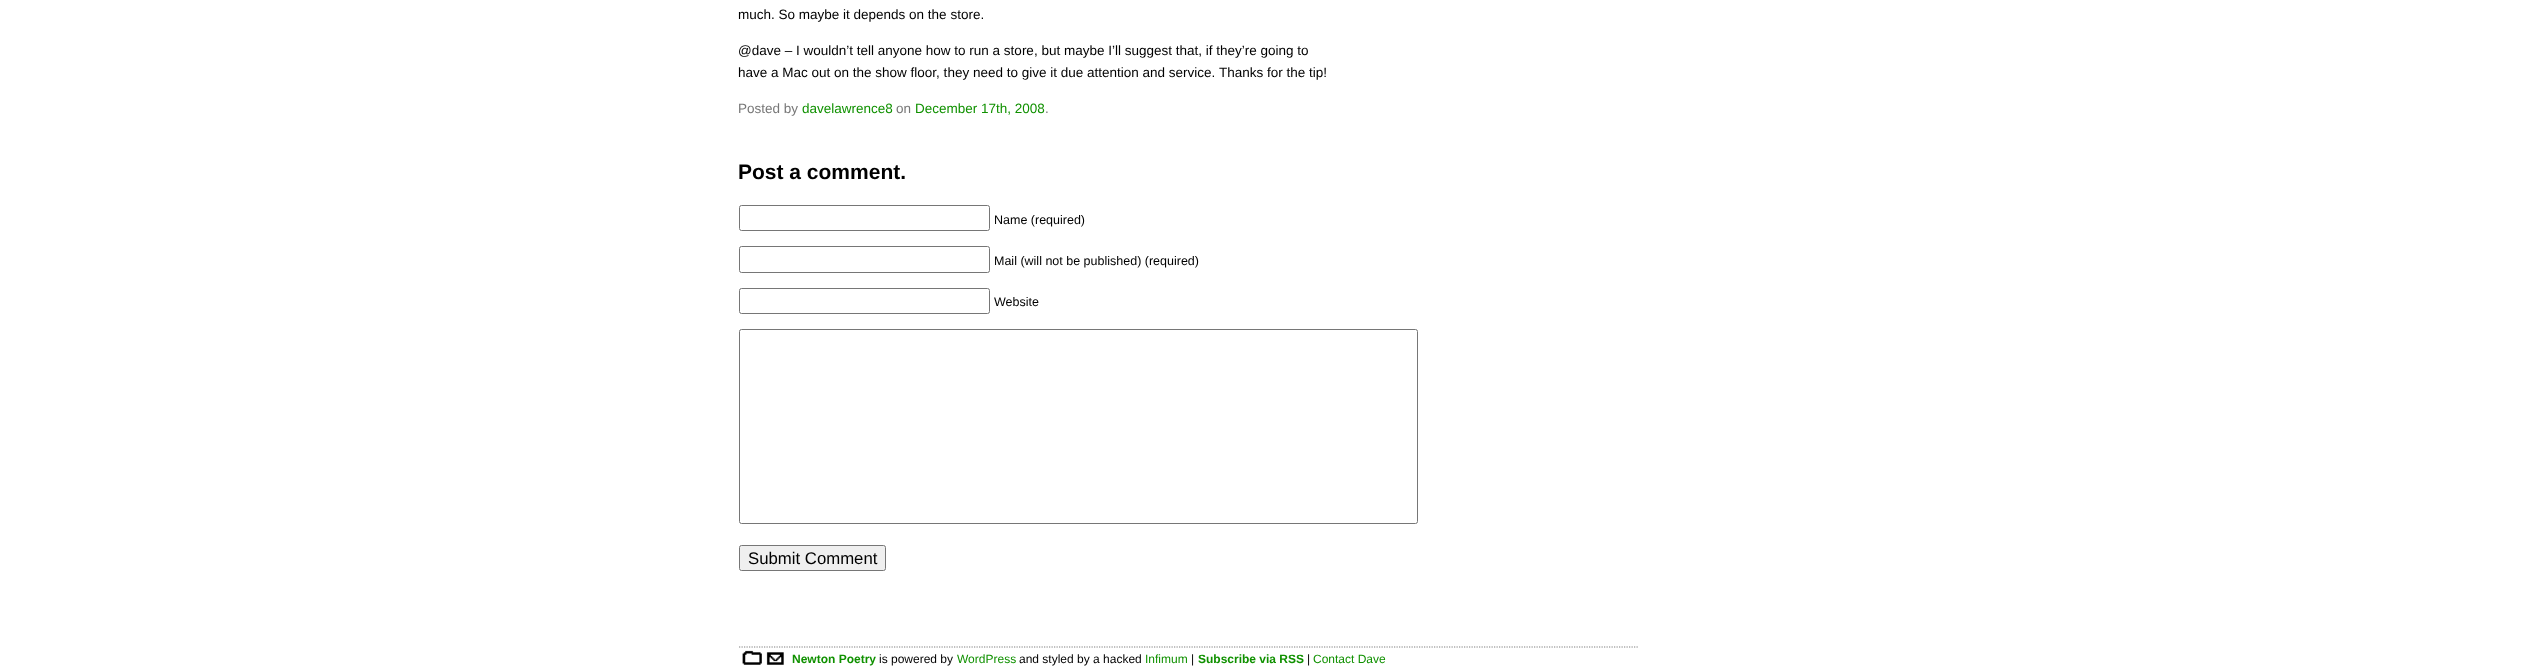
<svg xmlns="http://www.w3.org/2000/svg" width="2526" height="666">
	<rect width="100%" height="100%" fill="#FFFFFF" />
	<g font-family="Liberation Sans" font-size="13.5" fill="#000000">
		<text x="738" y="19">much. So maybe it depends on the store.</text>
		<text x="738" y="55">@dave – I wouldn’t tell anyone how to run a store, but maybe I’ll suggest that, if they’re going to</text>
		<text x="738" y="77">have a Mac out on the show floor, they need to give it due attention and service.</text>
		<text x="1219" y="77">Thanks for the tip!</text>
	</g>
	<text x="738" y="113" font-family="Liberation Sans" font-size="13.5" fill="#777777">Posted by</text>
	<text x="802" y="113" font-family="Liberation Sans" font-size="13.5" fill="#109100">davelawrence8</text>
	<text x="896" y="113" font-family="Liberation Sans" font-size="13.5" fill="#777777">on</text>
	<text x="915" y="113" font-family="Liberation Sans" font-size="13.5" fill="#109100">December 17th, 2008</text>
	<text x="1045" y="113" font-family="Liberation Sans" font-size="13.5" fill="#777777">.</text>
	<text x="738" y="179" font-family="Liberation Sans" font-size="21" font-weight="700" fill="#000000">Post a comment.</text>
	<rect x="739.5" y="205.5" width="250" height="25" rx="2" fill="none" stroke="#767676" />
	<text x="994" y="224" font-family="Liberation Sans" font-size="12.5" fill="#000000">Name (required)</text>
	<rect x="739.5" y="246.5" width="250" height="26" rx="2" fill="none" stroke="#767676" />
	<text x="994" y="265" font-family="Liberation Sans" font-size="12.5" fill="#000000">Mail (will not be published) (required)</text>
	<rect x="739.5" y="288.5" width="250" height="25" rx="2" fill="none" stroke="#767676" />
	<text x="994" y="306" font-family="Liberation Sans" font-size="12.5" fill="#000000">Website</text>
	<rect x="739.5" y="329.5" width="678" height="194" rx="2" fill="none" stroke="#767676" />
	<rect x="739.5" y="545.5" width="146" height="25" rx="2" fill="#EFEFEF" stroke="#767676" />
	<text x="748" y="564" font-family="Liberation Sans" font-size="16.75" fill="#000000">Submit Comment</text>
	<image x="742" y="650" width="42" height="15" href="assets/img1.png" />
	<path d="M739 647H1639" fill="none" stroke="#808080" stroke-width="1.2" stroke-dasharray="1.25 1.25" />
	<text x="792" y="663" font-family="Liberation Sans" font-size="12" font-weight="700" fill="#109100">Newton Poetry</text>
	<text x="879" y="663" font-family="Liberation Sans" font-size="12" fill="#000000">is powered by</text>
	<text x="957" y="663" font-family="Liberation Sans" font-size="12" fill="#109100">WordPress</text>
	<text x="1019" y="663" font-family="Liberation Sans" font-size="12" fill="#000000">and styled by a hacked</text>
	<text x="1145" y="663" font-family="Liberation Sans" font-size="12" fill="#109100">Infimum</text>
	<text x="1191" y="663" font-family="Liberation Sans" font-size="12" fill="#000000">|</text>
	<text x="1198" y="663" font-family="Liberation Sans" font-size="12" font-weight="700" fill="#109100">Subscribe via RSS</text>
	<text x="1307" y="663" font-family="Liberation Sans" font-size="12" fill="#000000">|</text>
	<text x="1313" y="663" font-family="Liberation Sans" font-size="12" fill="#109100">Contact Dave</text>
</svg>
